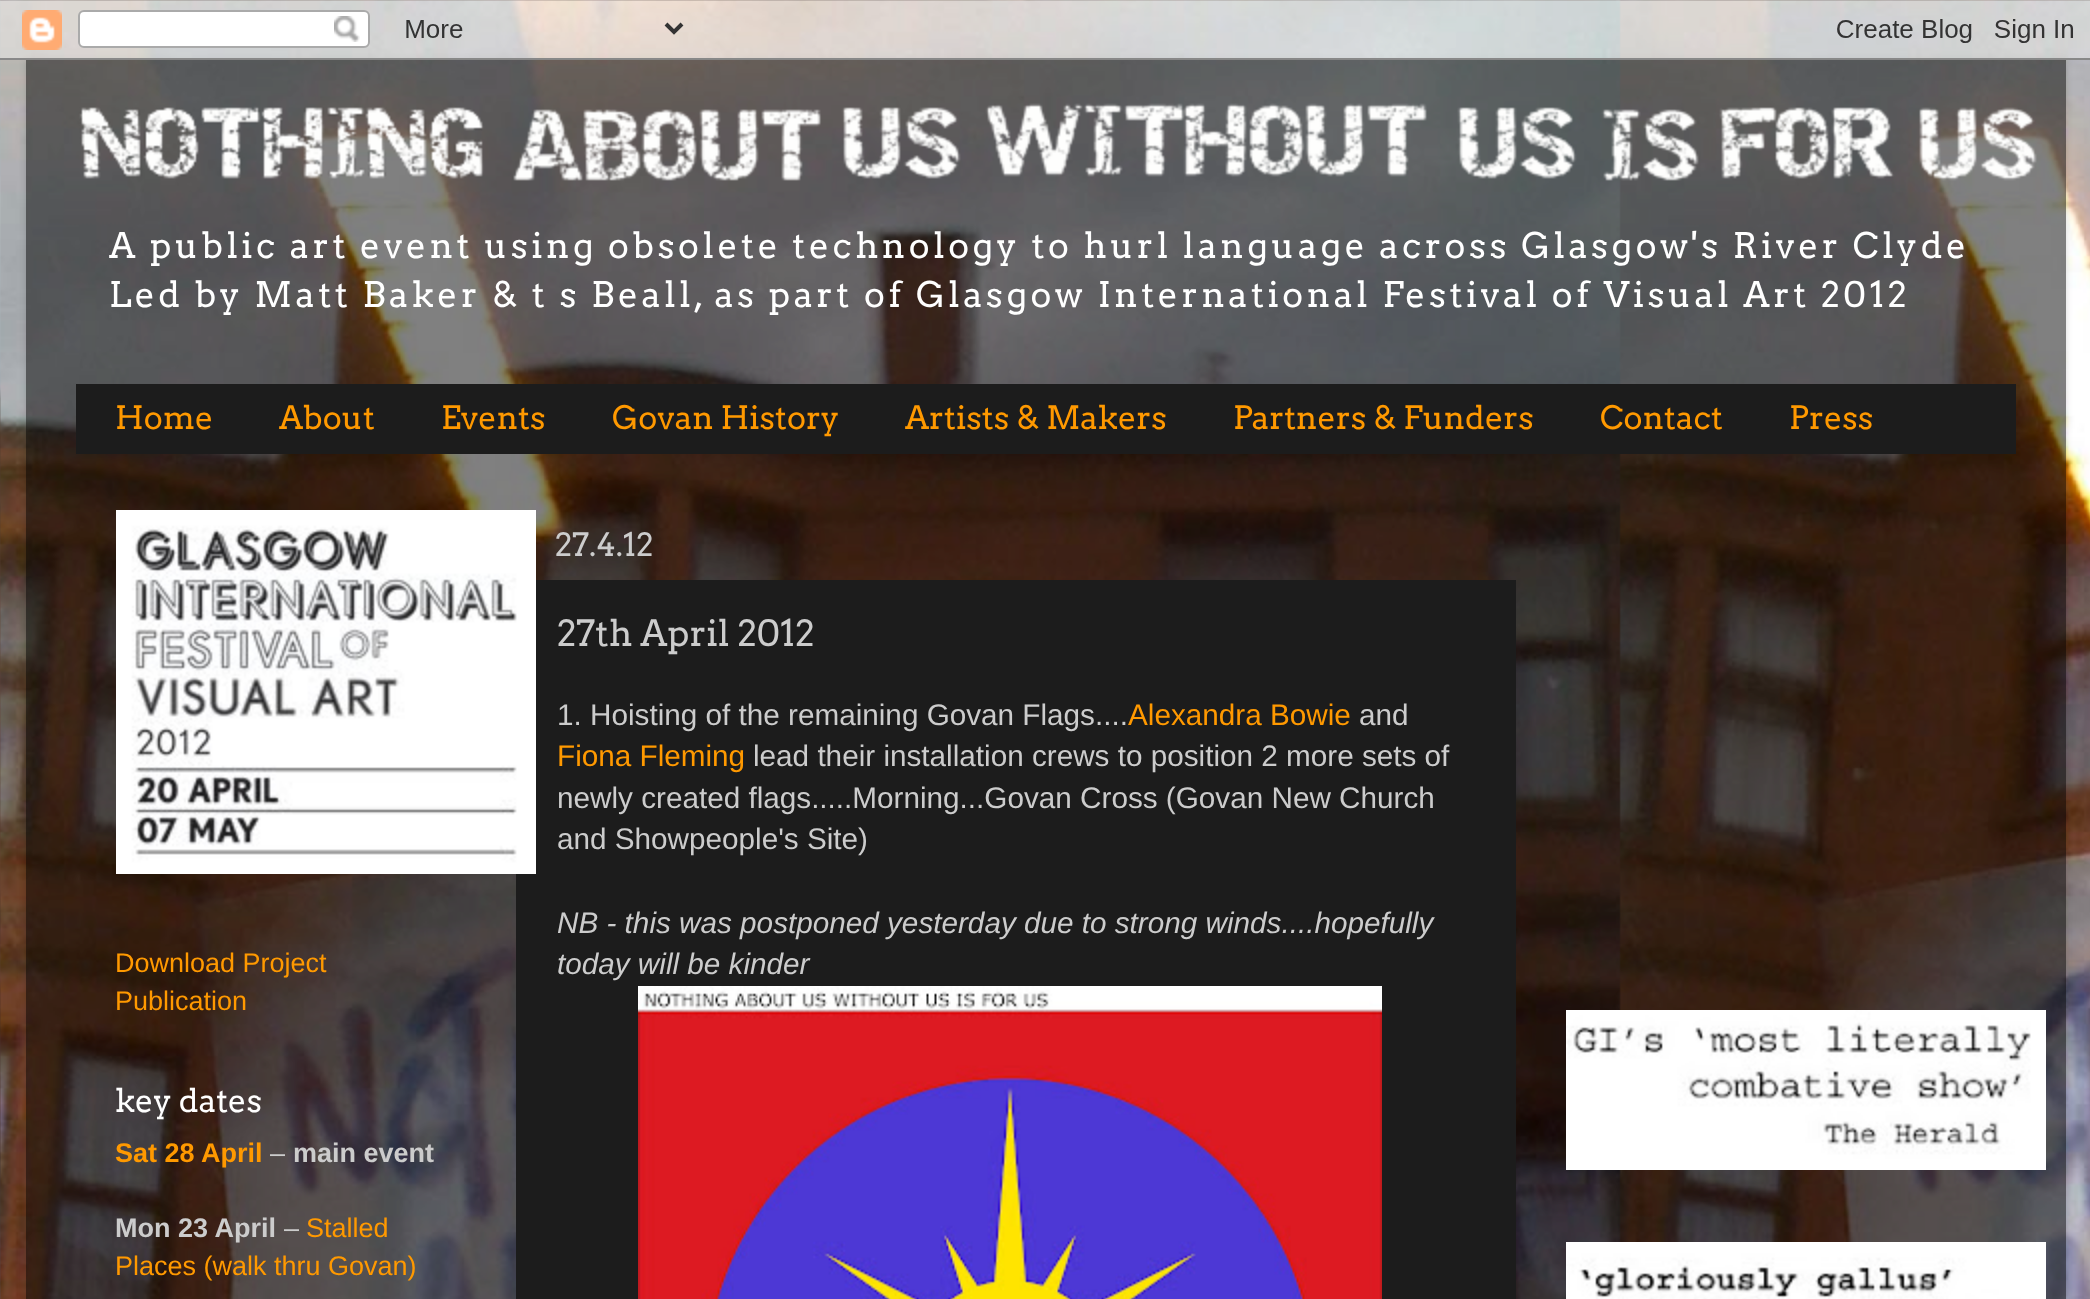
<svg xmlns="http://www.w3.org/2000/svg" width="2090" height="1299">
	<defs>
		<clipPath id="clip1"><path d="M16 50H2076V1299H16ZM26 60H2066V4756H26Z" clip-rule="evenodd" /></clipPath>
	</defs>
	<rect width="100%" height="100%" fill="#FFFFFF" />
	<image x="0" y="0" width="2090" height="1299" href="assets/img1.png" />
	<g clip-path="url(#clip1)">
		<rect x="26" y="60" width="2040" height="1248" fill="#000000" fill-opacity="0.15" filter="blur(3px)" />
	</g>
	<image x="0" y="0" width="2090" height="60" href="assets/img2.png" />
	<image x="79" y="103" width="1958" height="78" href="assets/img3.png" />
	<g font-family="Arvo" font-size="35.1" letter-spacing="3.5" fill="#FFFFFF">
		<text x="109" y="258" word-spacing="-0.1">A public art event using obsolete technology to hurl language across Glasgow's River Clyde</text>
		<text x="109" y="307">Led by Matt Baker &amp; t s Beall, as part of Glasgow International Festival of Visual Art 2012</text>
	</g>
	<rect x="76" y="384" width="1940" height="70" fill="#1C1C1C" />
	<g font-family="Arvo" font-size="32" fill="#FF9900">
		<text x="115" y="429">Home</text>
		<text x="279" y="429">About</text>
		<text x="441" y="429">Events</text>
		<text x="612" y="429">Govan History</text>
		<text x="905" y="429">Artists &amp; Makers</text>
		<text x="1233" y="429">Partners &amp; Funders</text>
		<text x="1600" y="429">Contact</text>
		<text x="1789" y="429">Press</text>
	</g>
	<text x="555" y="556" font-family="Arvo" font-size="32" fill="#CCCCCC">27.4.12</text>
	<rect x="516" y="580" width="1000" height="719" fill="#1C1C1C" />
	<text x="557" y="646" font-family="Arvo" font-size="36" fill="#CCCCCC">27th April 2012</text>
	<text x="557" y="725" font-family="Liberation Sans" font-size="29.7" fill="#CCCCCC">1. Hoisting of the remaining Govan Flags....</text>
	<text x="1128" y="725" font-family="Liberation Sans" font-size="29.7" fill="#FF9900">Alexandra Bowie</text>
	<text x="1359" y="725" font-family="Liberation Sans" font-size="29.7" fill="#CCCCCC">and</text>
	<text x="557" y="766" font-family="Liberation Sans" font-size="29.7" fill="#FF9900">Fiona Fleming</text>
	<g font-family="Liberation Sans" font-size="29.7" fill="#CCCCCC">
		<text x="753" y="766">lead their installation crews to position 2 more sets of</text>
		<text x="557" y="808">newly created flags.....Morning...Govan Cross (Govan New Church</text>
		<text x="557" y="849">and Showpeople's Site)</text>
	</g>
	<g font-family="Liberation Sans" font-size="29.7" font-style="italic" fill="#CCCCCC">
		<text x="557" y="933">NB - this was postponed yesterday due to strong winds....hopefully</text>
		<text x="557" y="974">today will be kinder</text>
	</g>
	<image x="638" y="986" width="744" height="313" href="assets/img4.png" />
	<image x="116" y="510" width="420" height="364" href="assets/img5.png" />
	<g font-family="Liberation Sans" font-size="27" fill="#FF9900">
		<text x="115" y="972">Download Project</text>
		<text x="115" y="1010">Publication</text>
	</g>
	<text x="115" y="1112" font-family="Arvo" font-size="32" fill="#FFFFFF">key dates</text>
	<text x="115" y="1162" font-family="Liberation Sans" font-size="27" font-weight="700" fill="#FF9900">Sat 28 April</text>
	<text x="270" y="1162" font-family="Liberation Sans" font-size="27" fill="#CCCCCC">–</text>
	<g font-family="Liberation Sans" font-size="27" font-weight="700" fill="#CCCCCC">
		<text x="293" y="1162">main event</text>
		<text x="115" y="1237">Mon 23 April</text>
	</g>
	<text x="284" y="1237" font-family="Liberation Sans" font-size="27" fill="#CCCCCC">–</text>
	<g font-family="Liberation Sans" font-size="27" fill="#FF9900">
		<text x="306" y="1237">Stalled</text>
		<text x="115" y="1275">Places (walk thru Govan)</text>
	</g>
	<image x="1566" y="1010" width="480" height="160" href="assets/img6.png" />
	<image x="1566" y="1242" width="480" height="57" href="assets/img7.png" />
</svg>
